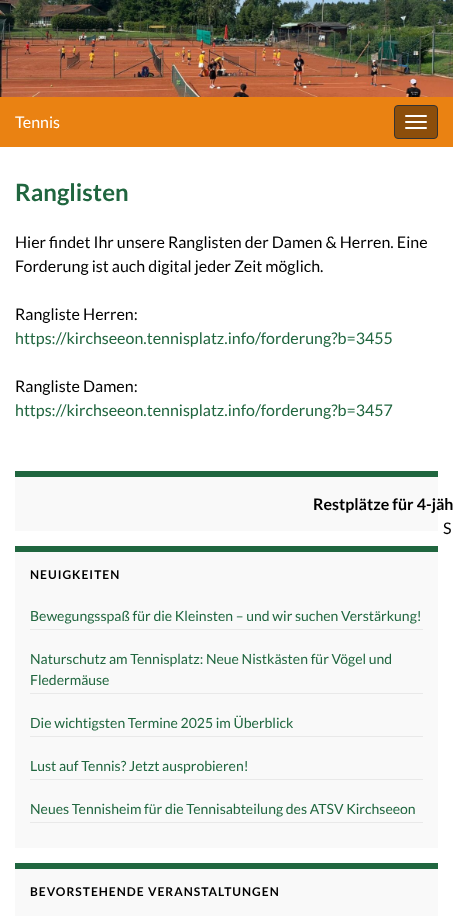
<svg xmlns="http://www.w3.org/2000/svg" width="453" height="916">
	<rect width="100%" height="100%" fill="#FFFFFF" />
	<image x="0" y="0" width="453" height="97" href="assets/img1.png" />
	<rect x="0" y="97" width="453" height="50" fill="#EA8212" />
	<text x="15" y="128" font-family="Lato" font-size="16" fill="#FFFFFF">Tennis</text>
	<rect x="394.5" y="105.5" width="43" height="33" rx="3.5" fill="#8C4E0B" stroke="#333333" />
	<rect x="405" y="115" width="22" height="2" rx="1" fill="#FFFFFF" />
	<rect x="405" y="121" width="22" height="2" rx="1" fill="#FFFFFF" />
	<rect x="405" y="127" width="22" height="2" rx="1" fill="#FFFFFF" />
	<text x="15" y="201" font-family="Lato" font-size="24" font-weight="700" fill="#20663F">Ranglisten</text>
	<g font-family="Lato" font-size="16" fill="#000000">
		<text x="15" y="248">Hier findet Ihr unsere Ranglisten der Damen &amp; Herren. Eine</text>
		<text x="15" y="272">Forderung ist auch digital jeder Zeit möglich.</text>
		<text x="15" y="320">Rangliste Herren:</text>
	</g>
	<text x="15" y="344" font-family="Lato" font-size="16" fill="#20663F">https://kirchseeon.tennisplatz.info/forderung?b=3455</text>
	<text x="15" y="392" font-family="Lato" font-size="16" fill="#000000">Rangliste Damen:</text>
	<text x="15" y="416" font-family="Lato" font-size="16" fill="#20663F">https://kirchseeon.tennisplatz.info/forderung?b=3457</text>
	<rect x="15" y="477" width="423" height="54" fill="#F9F9F9" />
	<rect x="15" y="471" width="423" height="6" fill="#20663F" />
	<text x="313" y="510" font-family="Lato" font-size="16" font-weight="700" fill="#000000">Restplätze für 4-jäh</text>
	<text x="443" y="534" font-family="Lato" font-size="16" fill="#000000">S</text>
	<rect x="15" y="552" width="423" height="296" fill="#F9F9F9" />
	<rect x="15" y="546" width="423" height="6" fill="#20663F" />
	<text x="30" y="579" font-family="Lato" font-size="12" font-weight="700" letter-spacing="1" fill="#000000">NEUIGKEITEN</text>
	<rect x="30" y="629" width="393" height="1" fill="#E9E9E9" />
	<text x="30" y="621" font-family="Lato" font-size="14" fill="#20663F">Bewegungsspaß für die Kleinsten – und wir suchen Verstärkung!</text>
	<rect x="30" y="693" width="393" height="1" fill="#E9E9E9" />
	<g font-family="Lato" font-size="14" fill="#20663F">
		<text x="30" y="664">Naturschutz am Tennisplatz: Neue Nistkästen für Vögel und</text>
		<text x="30" y="685">Fledermäuse</text>
	</g>
	<rect x="30" y="736" width="393" height="1" fill="#E9E9E9" />
	<text x="30" y="728" font-family="Lato" font-size="14" fill="#20663F">Die wichtigsten Termine 2025 im Überblick</text>
	<rect x="30" y="779" width="393" height="1" fill="#E9E9E9" />
	<text x="30" y="771" font-family="Lato" font-size="14" fill="#20663F">Lust auf Tennis? Jetzt ausprobieren!</text>
	<rect x="30" y="822" width="393" height="1" fill="#E9E9E9" />
	<text x="30" y="814" font-family="Lato" font-size="14" fill="#20663F">Neues Tennisheim für die Tennisabteilung des ATSV Kirchseeon</text>
	<rect x="15" y="869" width="423" height="47" fill="#F9F9F9" />
	<rect x="15" y="863" width="423" height="6" fill="#20663F" />
	<text x="30" y="896" font-family="Lato" font-size="12" font-weight="700" letter-spacing="1" fill="#000000">BEVORSTEHENDE VERANSTALTUNGEN</text>
</svg>
